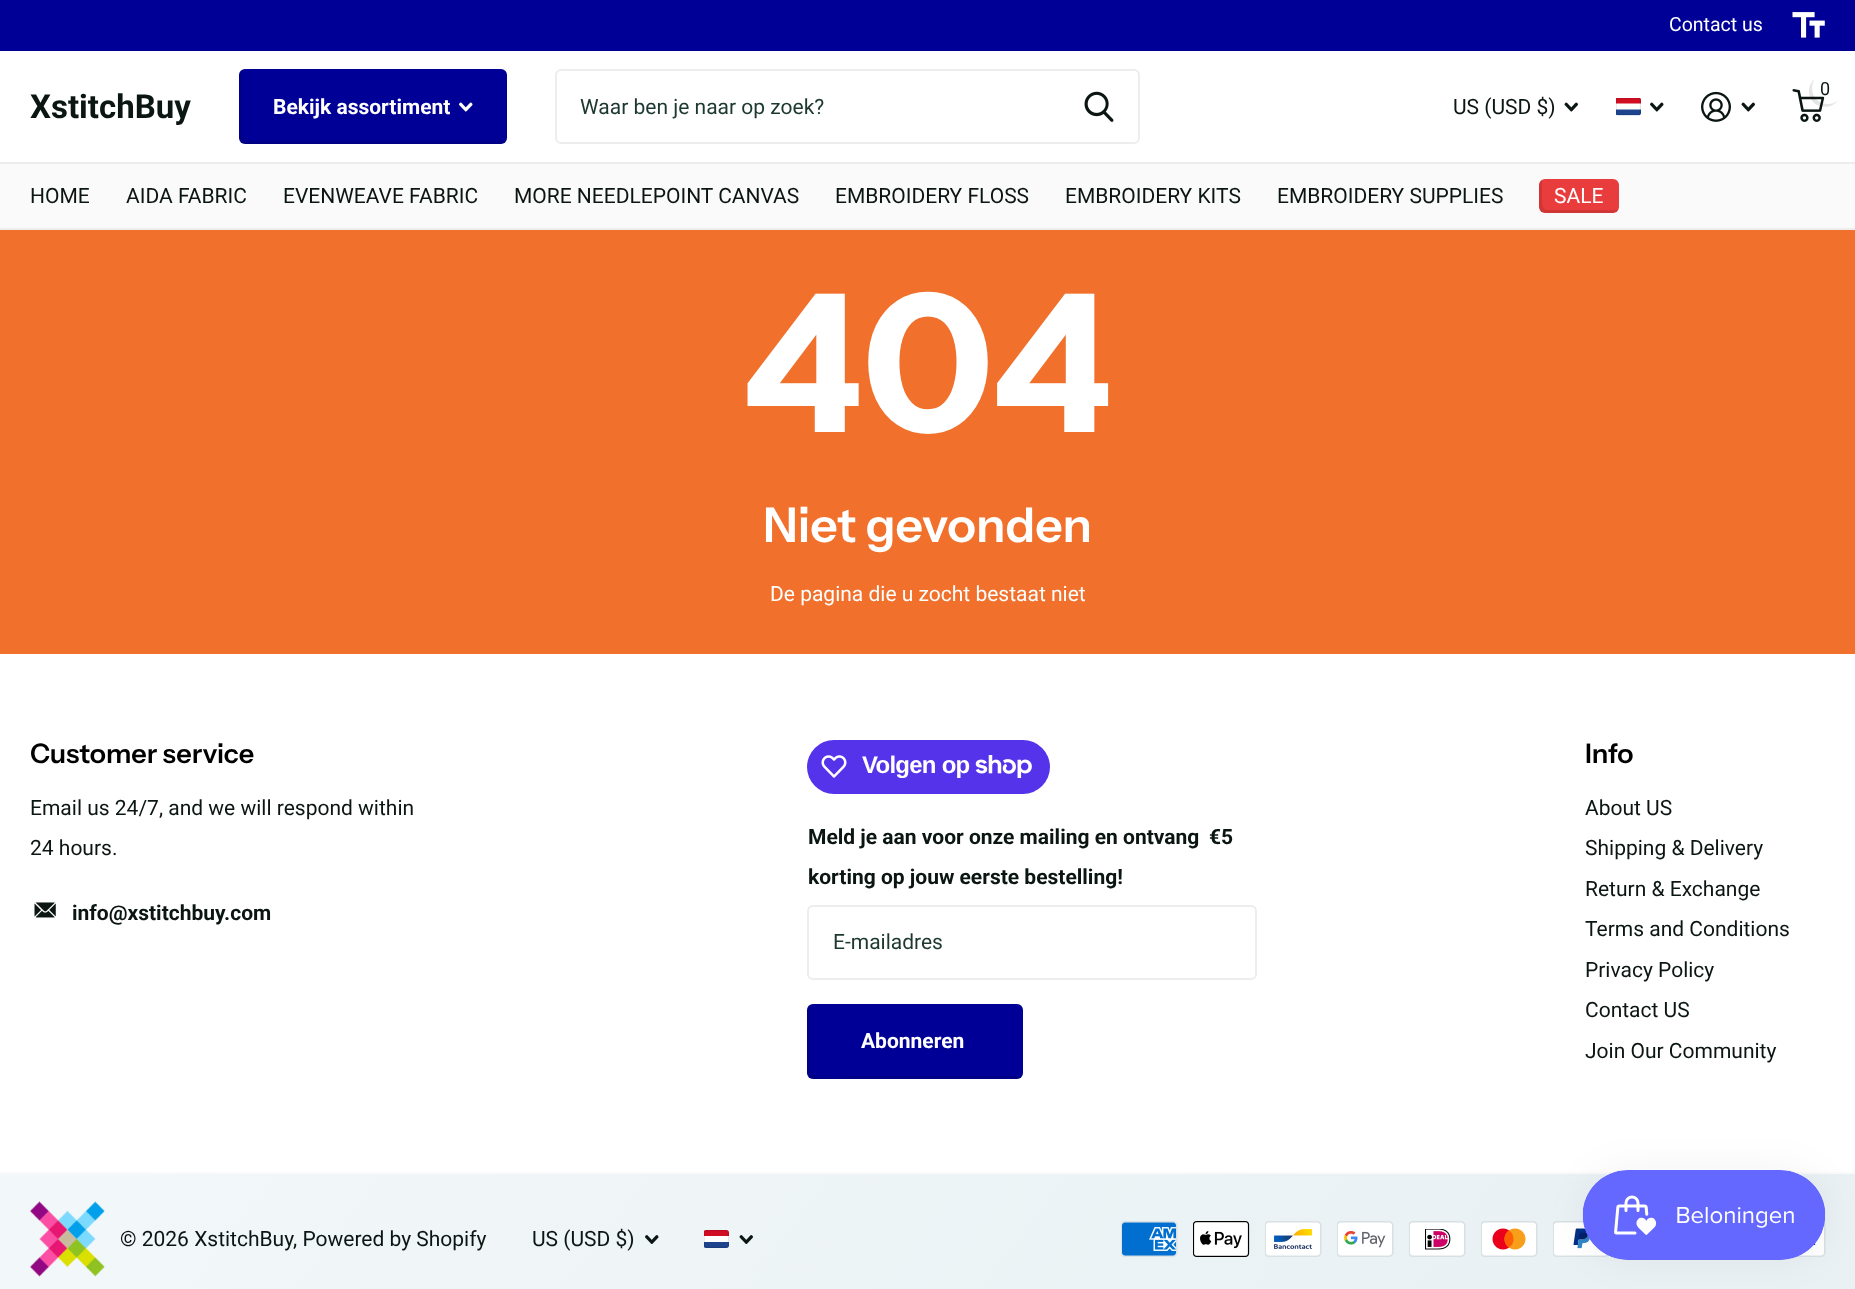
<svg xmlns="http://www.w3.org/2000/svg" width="1855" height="1289">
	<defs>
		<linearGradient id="g1" gradientUnits="userSpaceOnUse" x1="245" y1="725" x2="1611" y2="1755"><stop offset="0.11" stop-color="#F2F7F9" /><stop offset="0.81" stop-color="#E9F1F4" /></linearGradient>
	</defs>
	<rect width="100%" height="100%" fill="#FFFFFF" />
	<rect x="0" y="0" width="1855" height="51" fill="#000096" />
	<text x="1669" y="31" font-family="Roboto" font-size="19.5" fill="#FFFFFF">Contact us</text>
	<image x="1792" y="12" width="33" height="26" href="assets/img1.png" />
	<text x="30" y="118" font-family="Roboto" font-size="33" font-weight="700" fill="#0B1613">XstitchBuy</text>
	<rect x="239" y="69" width="268" height="75" rx="6" fill="#000096" />
	<path d="M242 70C240 71 239 73 239 75V138C239 141 242 144 245 144H501C503 144 506 142 507 140L504 141H248C244 141 242 138 242 135V72Z" fill="#000000" fill-opacity="0.1" />
	<text x="273" y="114" font-family="Roboto" font-size="21" font-weight="700" fill="#FFFFFF">Bekijk assortiment</text>
	<image x="459" y="102" width="14" height="10" href="assets/img2.png" />
	<rect x="556" y="70" width="583" height="73" rx="5" fill="none" stroke="#ECEDEC" stroke-width="2" />
	<text x="580" y="114" font-family="Roboto" font-size="21" fill="#1C3830">Waar ben je naar op zoek?</text>
	<image x="1084" y="91" width="30" height="31" href="assets/img3.png" />
	<image x="1792" y="89" width="33" height="33" href="assets/img4.png" />
	<path d="M1838 100.5C1835.5 102.5 1832 104 1828 104C1813 104 1808.5 88 1815 78.5C1807.5 84.5 1807 95.5 1813.5 102.5C1820.5 109 1832.5 108 1838 100.5Z" fill="#000000" fill-opacity="0.1" />
	<text x="1820" y="95" font-family="Roboto" font-size="18" fill="#0B1613">0</text>
	<text x="1453" y="114" font-family="Roboto" font-size="21" fill="#0B1613">US (USD $)</text>
	<image x="1564" y="102" width="14" height="10" href="assets/img5.png" />
	<image x="1616" y="98" width="25" height="18" href="assets/img6.png" />
	<image x="1650" y="102" width="14" height="10" href="assets/img7.png" />
	<image x="1701" y="91" width="30" height="31" href="assets/img8.png" />
	<image x="1741" y="102" width="14" height="10" href="assets/img5.png" />
	<rect x="0" y="164" width="1855" height="64" fill="#FAFAFA" />
	<rect x="0" y="162" width="1855" height="2" fill="#ECEDEC" />
	<g font-family="Roboto" font-size="21" fill="#0B1613">
		<text x="30" y="203">HOME</text>
		<text x="126" y="203">AIDA FABRIC</text>
		<text x="283" y="203">EVENWEAVE FABRIC</text>
		<text x="514" y="203">MORE NEEDLEPOINT CANVAS</text>
		<text x="835" y="203">EMBROIDERY FLOSS</text>
		<text x="1065" y="203">EMBROIDERY KITS</text>
		<text x="1277" y="203">EMBROIDERY SUPPLIES</text>
	</g>
	<rect x="1539" y="179" width="80" height="34" rx="6" fill="#E93D3D" />
	<path d="M1542 180C1540 181 1539 183 1539 185V207C1539 210 1542 213 1545 213H1613C1615 213 1618 211 1619 209C1615 211 1606 210 1605 210H1559C1544 210 1542 212 1542 197Z" fill="#000000" fill-opacity="0.1" />
	<text x="1554" y="203" font-family="Roboto" font-size="21" fill="#FFFFFF">SALE</text>
	<rect x="0" y="228" width="1855" height="2" fill="#ECEDEC" />
	<rect x="0" y="230" width="1855" height="424" fill="#F0702C" />
	<text x="743" y="432" font-family="Instrument Sans" font-size="192" font-weight="700" fill="#FFFFFF">404</text>
	<text x="763" y="542" font-family="Instrument Sans" font-size="48" font-weight="600" fill="#FFFFFF">Niet gevonden</text>
	<text x="770" y="601" font-family="Roboto" font-size="21" fill="#FFFFFF">De pagina die u zocht bestaat niet</text>
	<text x="30" y="763" font-family="Instrument Sans" font-size="27" font-weight="600" fill="#000000">Customer service</text>
	<g font-family="Roboto" font-size="21" fill="#0B1613">
		<text x="30" y="815">Email us 24/7, and we will respond within</text>
		<text x="30" y="855">24 hours.</text>
	</g>
	<image x="34" y="902" width="22" height="16" href="assets/img9.png" />
	<text x="72" y="920" font-family="Roboto" font-size="21" font-weight="700" fill="#0B1613">info@xstitchbuy.com</text>
	<rect x="807" y="740" width="243" height="54" rx="27" fill="#5433EB" />
	<image x="821" y="755" width="26" height="23" href="assets/img10.png" />
	<text x="862" y="773" font-family="Liberation Sans" font-size="24" font-weight="700" letter-spacing="-0.75" fill="#FFFFFF">Volgen op</text>
	<image x="975" y="755" width="57" height="23" href="assets/img11.png" />
	<g font-family="Roboto" font-size="21" font-weight="700" fill="#0B1613">
		<text x="808" y="844">Meld je aan voor onze mailing en ontvang</text>
		<text x="1209" y="844">€5</text>
		<text x="808" y="884">korting op jouw eerste bestelling!</text>
	</g>
	<rect x="808" y="906" width="448" height="73" rx="5" fill="none" stroke="#ECEDEC" stroke-width="2" />
	<text x="833" y="949" font-family="Roboto" font-size="21" fill="#1C3830">E-mailadres</text>
	<rect x="807" y="1004" width="216" height="75" rx="6" fill="#000096" />
	<path d="M810 1005C808 1006 807 1008 807 1010V1073C807 1076 810 1079 813 1079H1017C1019 1079 1022 1077 1023 1075L1020 1076H850C845 1076 813 1082 810 1071Z" fill="#000000" fill-opacity="0.1" />
	<text x="861" y="1048" font-family="Roboto" font-size="21" font-weight="700" fill="#FFFFFF">Abonneren</text>
	<text x="1585" y="763" font-family="Instrument Sans" font-size="27" font-weight="600" fill="#000000">Info</text>
	<g font-family="Roboto" font-size="21" fill="#0B1613">
		<text x="1585" y="815">About US</text>
		<text x="1585" y="855">Shipping &amp; Delivery</text>
		<text x="1585" y="896">Return &amp; Exchange</text>
		<text x="1585" y="936">Terms and Conditions</text>
		<text x="1585" y="977">Privacy Policy</text>
		<text x="1585" y="1017">Contact US</text>
		<text x="1585" y="1058">Join Our Community</text>
	</g>
	<rect x="0" y="1174" width="1855" height="115" fill="url(#g1)" />
	<rect x="0" y="1172" width="1855" height="2" fill="#FAFAFA" />
	<image x="30" y="1201" width="75" height="76" href="assets/img12.png" />
	<g font-family="Roboto" font-size="21" fill="#0B1613">
		<text x="120" y="1246">© 2026 XstitchBuy, Powered by Shopify</text>
		<text x="532" y="1246">US (USD $)</text>
	</g>
	<image x="645" y="1235" width="14" height="9" href="assets/img13.png" />
	<image x="704" y="1230" width="25" height="18" href="assets/img14.png" />
	<image x="739" y="1235" width="14" height="9" href="assets/img15.png" />
	<image x="1121" y="1221" width="57" height="36" href="assets/img16.png" />
	<image x="1193" y="1221" width="57" height="36" href="assets/img17.png" />
	<image x="1265" y="1221" width="57" height="36" href="assets/img18.png" />
	<image x="1337" y="1221" width="57" height="36" href="assets/img19.png" />
	<image x="1409" y="1221" width="57" height="36" href="assets/img20.png" />
	<image x="1481" y="1221" width="57" height="36" href="assets/img21.png" />
	<image x="1553" y="1221" width="56" height="36" href="assets/img22.png" />
	<image x="1796" y="1222" width="30" height="35" href="assets/img23.png" />
	<rect x="1583" y="1170" width="243" height="90" rx="45" fill="#000000" fill-opacity="0.05" filter="blur(19px)" />
	<image x="1582" y="1170" width="244" height="90" href="assets/img24.png" />
</svg>
